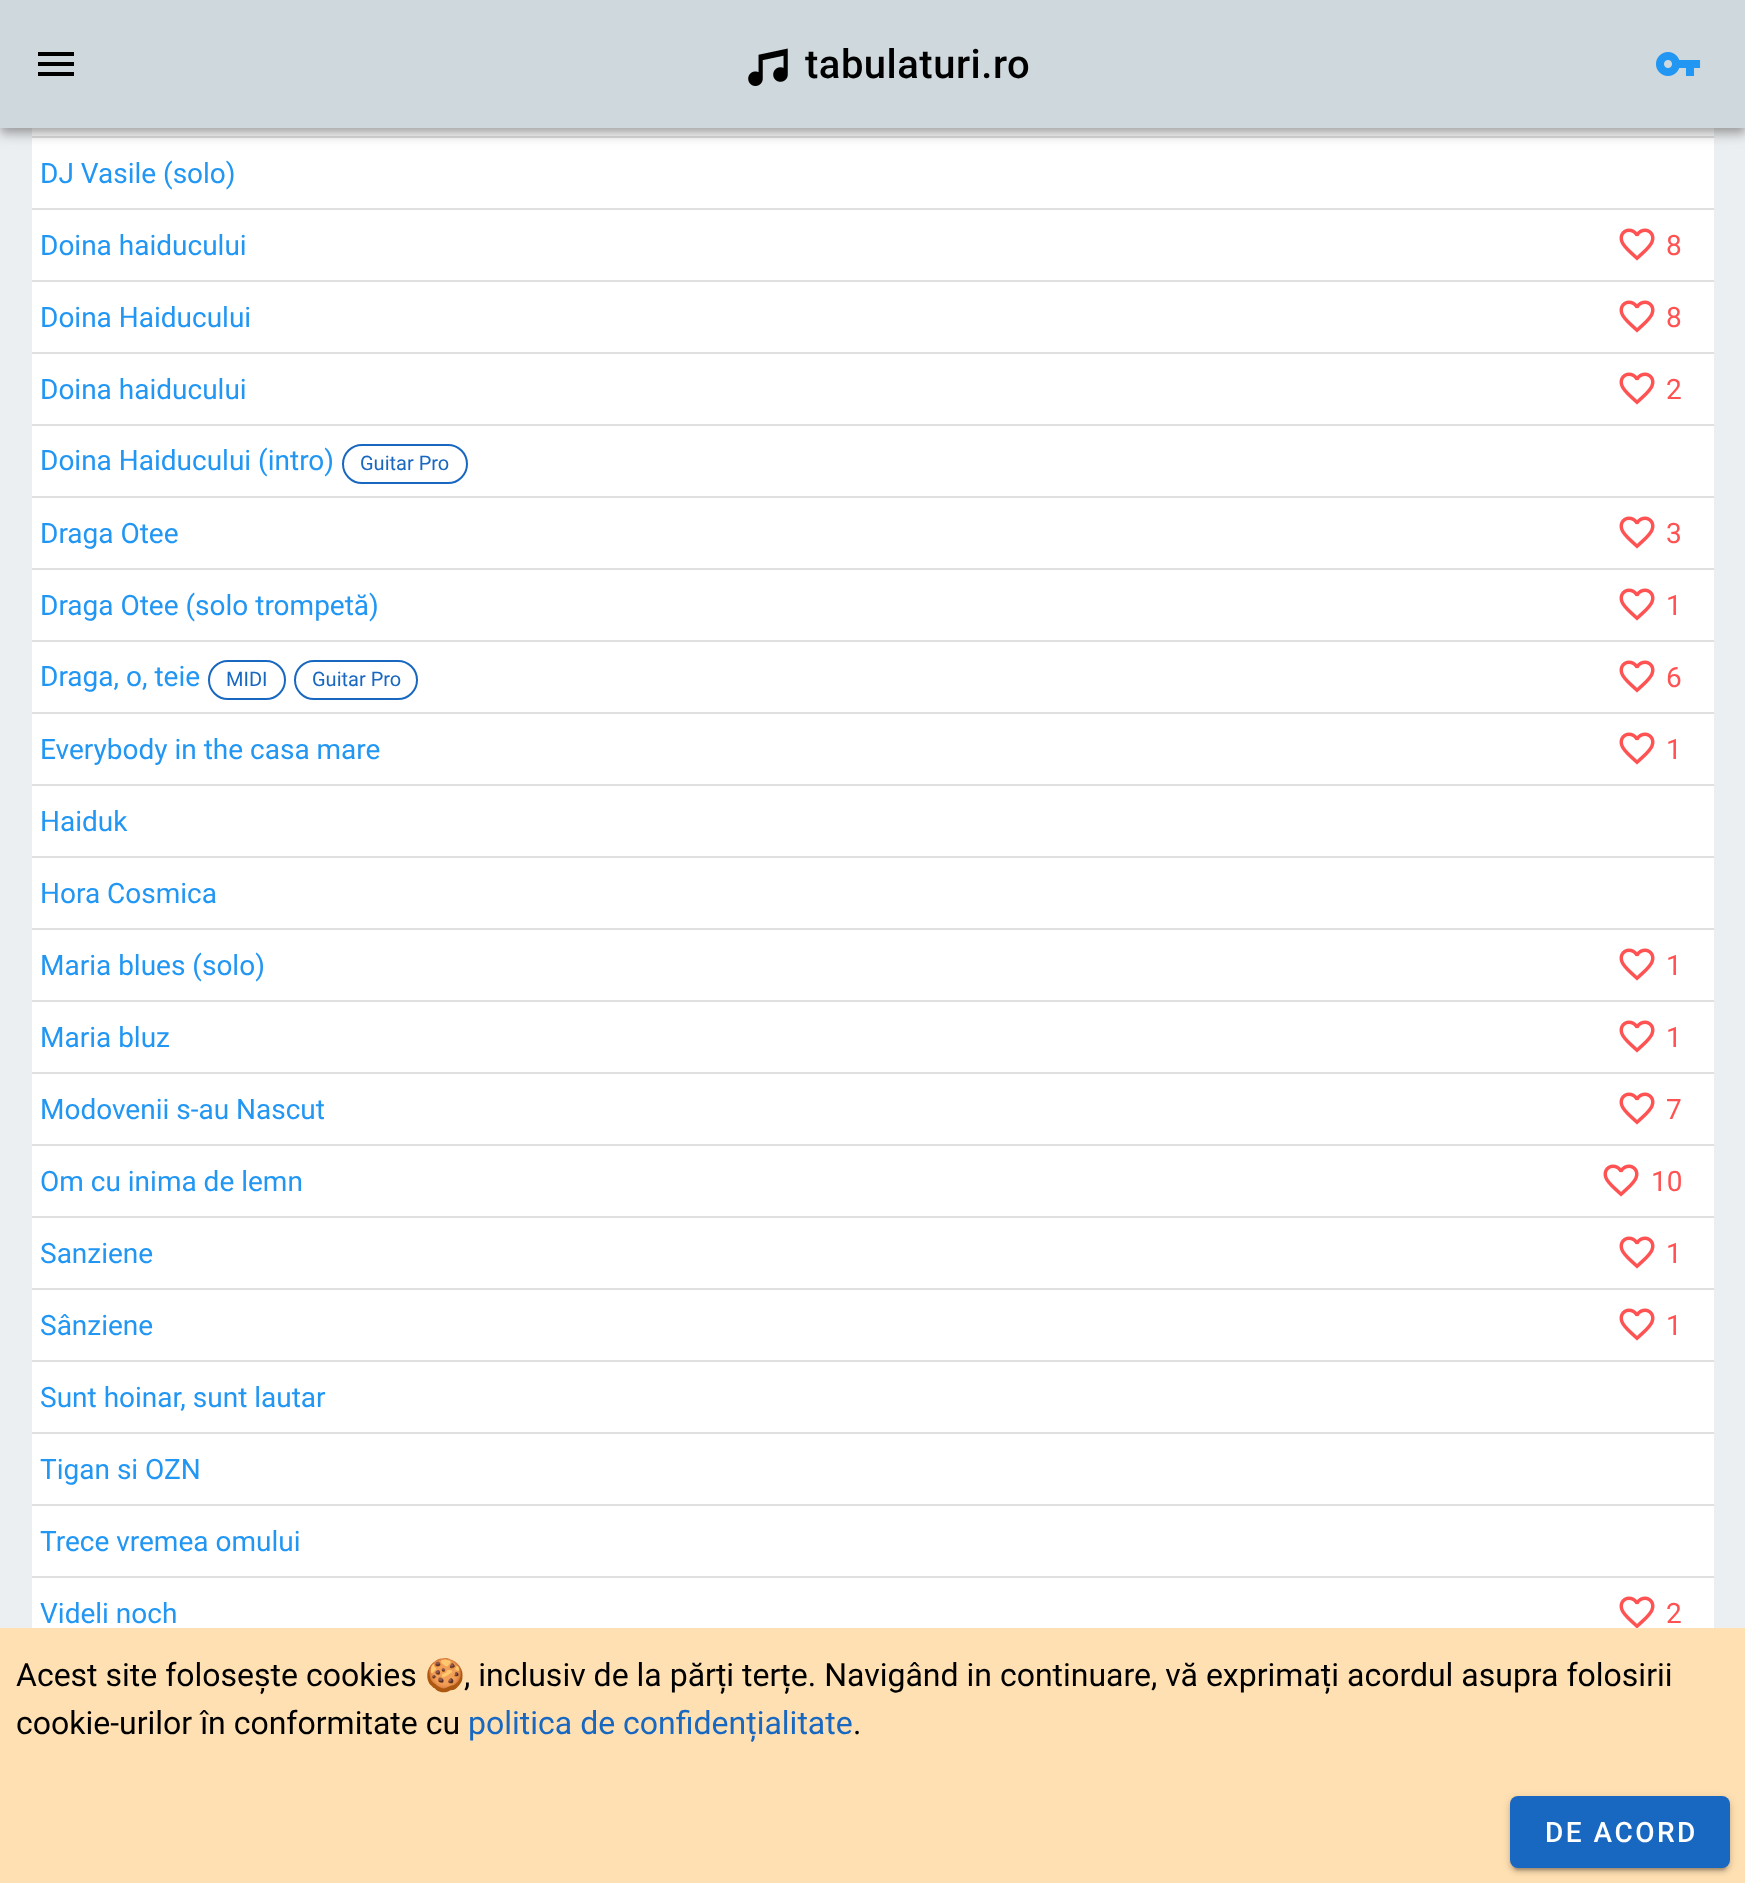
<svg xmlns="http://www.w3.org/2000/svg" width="1745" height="1883">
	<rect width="100%" height="100%" fill="#ECEFF1" />
	<rect x="32" y="128" width="1682" height="1500" fill="#FFFFFF" />
	<rect x="32" y="136" width="1682" height="2" fill="#E0E0E0" />
	<rect x="0" y="2" width="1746" height="128" fill="#000000" fill-opacity="0.12" filter="blur(10px)" />
	<rect x="0" y="8" width="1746" height="128" fill="#000000" fill-opacity="0.14" filter="blur(5px)" />
	<rect x="2" y="6" width="1742" height="124" fill="#000000" fill-opacity="0.2" filter="blur(4px)" />
	<rect x="0" y="0" width="1745" height="128" fill="#CFD8DC" />
	<path d="M38 52H74V56H38ZM38 62H74V66H38ZM38 72H74V76H38Z" fill="#000000" />
	<image x="748" y="48" width="40" height="38" href="assets/img1.png" />
	<text x="805" y="78" font-family="Roboto" font-size="40" font-weight="500" letter-spacing="0.5" fill="#000000">tabulaturi.ro</text>
	<image x="1656" y="52" width="45" height="24" href="assets/img2.png" />
	<rect x="32" y="208" width="1682" height="2" fill="#E0E0E0" />
	<text x="40" y="183" font-family="Roboto" font-size="28" fill="#2196F3">DJ Vasile (solo)</text>
	<rect x="32" y="280" width="1682" height="2" fill="#E0E0E0" />
	<text x="40" y="255" font-family="Roboto" font-size="28" fill="#2196F3">Doina haiducului</text>
	<image x="1619" y="228" width="36" height="33" href="assets/img3.png" />
	<text x="1666" y="255" font-family="Roboto" font-size="28" fill="#FF5252">8</text>
	<rect x="32" y="352" width="1682" height="2" fill="#E0E0E0" />
	<text x="40" y="327" font-family="Roboto" font-size="28" fill="#2196F3">Doina Haiducului</text>
	<image x="1619" y="300" width="36" height="33" href="assets/img3.png" />
	<text x="1666" y="327" font-family="Roboto" font-size="28" fill="#FF5252">8</text>
	<rect x="32" y="424" width="1682" height="2" fill="#E0E0E0" />
	<text x="40" y="399" font-family="Roboto" font-size="28" fill="#2196F3">Doina haiducului</text>
	<image x="1619" y="372" width="36" height="33" href="assets/img3.png" />
	<text x="1666" y="399" font-family="Roboto" font-size="28" fill="#FF5252">2</text>
	<rect x="32" y="496" width="1682" height="2" fill="#E0E0E0" />
	<text x="40" y="470" font-family="Roboto" font-size="28" fill="#2196F3">Doina Haiducului (intro)</text>
	<rect x="343" y="445" width="124" height="38" rx="19" fill="none" stroke="#1867C0" stroke-width="2" />
	<text x="360" y="470" font-family="Roboto" font-size="20" fill="#1867C0">Guitar Pro</text>
	<rect x="32" y="568" width="1682" height="2" fill="#E0E0E0" />
	<text x="40" y="543" font-family="Roboto" font-size="28" fill="#2196F3">Draga Otee</text>
	<image x="1619" y="516" width="36" height="33" href="assets/img3.png" />
	<text x="1666" y="543" font-family="Roboto" font-size="28" fill="#FF5252">3</text>
	<rect x="32" y="640" width="1682" height="2" fill="#E0E0E0" />
	<text x="40" y="615" font-family="Roboto" font-size="28" fill="#2196F3">Draga Otee (solo trompetă)</text>
	<image x="1619" y="588" width="36" height="33" href="assets/img3.png" />
	<text x="1666" y="615" font-family="Roboto" font-size="28" fill="#FF5252">1</text>
	<rect x="32" y="712" width="1682" height="2" fill="#E0E0E0" />
	<text x="40" y="686" font-family="Roboto" font-size="28" fill="#2196F3">Draga, o, teie</text>
	<rect x="209" y="661" width="76" height="38" rx="19" fill="none" stroke="#1867C0" stroke-width="2" />
	<text x="226" y="686" font-family="Roboto" font-size="20" fill="#1867C0">MIDI</text>
	<rect x="295" y="661" width="122" height="38" rx="19" fill="none" stroke="#1867C0" stroke-width="2" />
	<text x="312" y="686" font-family="Roboto" font-size="20" fill="#1867C0">Guitar Pro</text>
	<image x="1619" y="660" width="36" height="33" href="assets/img3.png" />
	<text x="1666" y="687" font-family="Roboto" font-size="28" fill="#FF5252">6</text>
	<rect x="32" y="784" width="1682" height="2" fill="#E0E0E0" />
	<text x="40" y="759" font-family="Roboto" font-size="28" fill="#2196F3">Everybody in the casa mare</text>
	<image x="1619" y="732" width="36" height="33" href="assets/img3.png" />
	<text x="1666" y="759" font-family="Roboto" font-size="28" fill="#FF5252">1</text>
	<rect x="32" y="856" width="1682" height="2" fill="#E0E0E0" />
	<text x="40" y="831" font-family="Roboto" font-size="28" fill="#2196F3">Haiduk</text>
	<rect x="32" y="928" width="1682" height="2" fill="#E0E0E0" />
	<text x="40" y="903" font-family="Roboto" font-size="28" fill="#2196F3">Hora Cosmica</text>
	<rect x="32" y="1000" width="1682" height="2" fill="#E0E0E0" />
	<text x="40" y="975" font-family="Roboto" font-size="28" fill="#2196F3">Maria blues (solo)</text>
	<image x="1619" y="948" width="36" height="33" href="assets/img3.png" />
	<text x="1666" y="975" font-family="Roboto" font-size="28" fill="#FF5252">1</text>
	<rect x="32" y="1072" width="1682" height="2" fill="#E0E0E0" />
	<text x="40" y="1047" font-family="Roboto" font-size="28" fill="#2196F3">Maria bluz</text>
	<image x="1619" y="1020" width="36" height="33" href="assets/img3.png" />
	<text x="1666" y="1047" font-family="Roboto" font-size="28" fill="#FF5252">1</text>
	<rect x="32" y="1144" width="1682" height="2" fill="#E0E0E0" />
	<text x="40" y="1119" font-family="Roboto" font-size="28" fill="#2196F3">Modovenii s-au Nascut</text>
	<image x="1619" y="1092" width="36" height="33" href="assets/img3.png" />
	<text x="1666" y="1119" font-family="Roboto" font-size="28" fill="#FF5252">7</text>
	<rect x="32" y="1216" width="1682" height="2" fill="#E0E0E0" />
	<text x="40" y="1191" font-family="Roboto" font-size="28" fill="#2196F3">Om cu inima de lemn</text>
	<image x="1603" y="1164" width="36" height="33" href="assets/img3.png" />
	<text x="1651" y="1191" font-family="Roboto" font-size="28" fill="#FF5252">10</text>
	<rect x="32" y="1288" width="1682" height="2" fill="#E0E0E0" />
	<text x="40" y="1263" font-family="Roboto" font-size="28" fill="#2196F3">Sanziene</text>
	<image x="1619" y="1236" width="36" height="33" href="assets/img3.png" />
	<text x="1666" y="1263" font-family="Roboto" font-size="28" fill="#FF5252">1</text>
	<rect x="32" y="1360" width="1682" height="2" fill="#E0E0E0" />
	<text x="40" y="1335" font-family="Roboto" font-size="28" fill="#2196F3">Sânziene</text>
	<image x="1619" y="1308" width="36" height="33" href="assets/img3.png" />
	<text x="1666" y="1335" font-family="Roboto" font-size="28" fill="#FF5252">1</text>
	<rect x="32" y="1432" width="1682" height="2" fill="#E0E0E0" />
	<text x="40" y="1407" font-family="Roboto" font-size="28" fill="#2196F3">Sunt hoinar, sunt lautar</text>
	<rect x="32" y="1504" width="1682" height="2" fill="#E0E0E0" />
	<text x="40" y="1479" font-family="Roboto" font-size="28" fill="#2196F3">Tigan si OZN</text>
	<rect x="32" y="1576" width="1682" height="2" fill="#E0E0E0" />
	<g font-family="Roboto" font-size="28" fill="#2196F3">
		<text x="40" y="1551">Trece vremea omului</text>
		<text x="40" y="1623">Videli noch</text>
	</g>
	<image x="1619" y="1596" width="36" height="32" href="assets/img4.png" />
	<text x="1666" y="1623" font-family="Roboto" font-size="28" fill="#FF5252">2</text>
	<rect x="0" y="1628" width="1745" height="255" fill="#FFE0B2" />
	<text x="16" y="1686" font-family="Roboto" font-size="32" fill="#000000">Acest site folosește cookies</text>
	<text x="425" y="1686" font-family="Noto Color Emoji" font-size="32" fill="#000000">🍪</text>
	<g font-family="Roboto" font-size="32" fill="#000000">
		<text x="464" y="1686">, inclusiv de la părți terțe. Navigând in continuare, vă exprimați acordul asupra folosirii</text>
		<text x="16" y="1734">cookie-urilor în conformitate cu</text>
	</g>
	<text x="468" y="1734" font-family="Roboto" font-size="32" fill="#1867C0">politica de confidențialitate</text>
	<text x="853" y="1734" font-family="Roboto" font-size="32" fill="#000000">.</text>
	<rect x="1510" y="1798" width="220" height="72" rx="8" fill="#000000" fill-opacity="0.12" filter="blur(5px)" />
	<rect x="1510" y="1800" width="220" height="72" rx="8" fill="#000000" fill-opacity="0.14" filter="blur(2px)" />
	<rect x="1514" y="1806" width="212" height="64" rx="4" fill="#000000" fill-opacity="0.2" filter="blur(1px)" />
	<rect x="1510" y="1796" width="220" height="72" rx="8" fill="#1867C0" />
	<text x="1545" y="1842" font-family="Roboto" font-size="28" font-weight="500" letter-spacing="2.5" fill="#FFFFFF">DE ACORD</text>
</svg>
